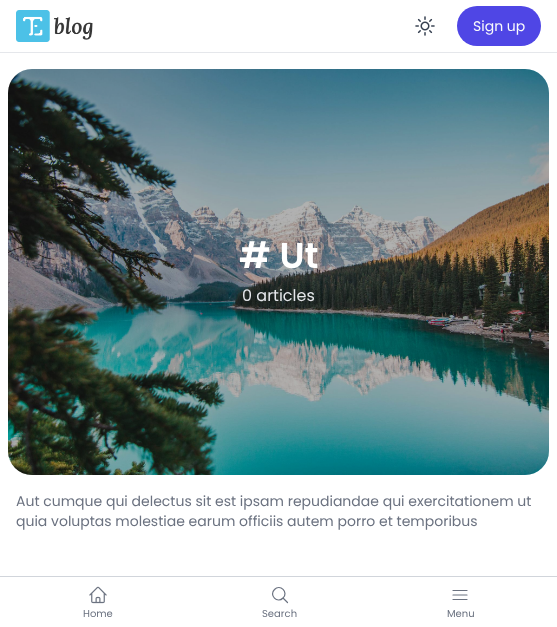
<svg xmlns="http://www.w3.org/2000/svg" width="557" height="627">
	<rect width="100%" height="100%" fill="#FFFFFF" />
	<rect x="0" y="52" width="557" height="1" fill="#E5E7EB" />
	<image x="16" y="10" width="77" height="32" href="assets/img1.png" />
	<image x="415" y="16" width="20" height="20" href="assets/img2.png" />
	<rect x="457" y="6" width="84" height="40" rx="20" fill="#4F46E5" />
	<text x="473" y="31" font-family="Poppins" font-size="14" fill="#F9FAFB">Sign up</text>
	<image x="8" y="69" width="541" height="406" href="assets/img3.png" />
	<rect x="8" y="69" width="541" height="406" rx="24" fill="#000000" fill-opacity="0.3" />
	<text x="239" y="268" font-family="Poppins" font-size="36" font-weight="600" fill="#FFFFFF"># Ut</text>
	<text x="242" y="301" font-family="Poppins" font-size="16" fill="#E5E7EB">0 articles</text>
	<g font-family="Poppins" font-size="14" fill="#6B7280">
		<text x="16" y="506">Aut cumque qui delectus sit est ipsam repudiandae qui exercitationem ut</text>
		<text x="16" y="526">quia voluptas molestiae earum officiis autem porro et temporibus</text>
	</g>
	<rect x="0" y="576" width="557" height="1" fill="#D1D5DB" />
	<image x="89" y="586" width="18" height="18" href="assets/img4.png" />
	<text x="83" y="617" font-family="Poppins" font-size="10" fill="#6B7280">Home</text>
	<path d="M287.5 602.5L283 598M283 598C289 592.5 280 583.5 274.5 589.5C268.5 595 277.5 604 283 598Z" fill="none" stroke="#6B7280" stroke-width="1.2" stroke-linecap="round" stroke-linejoin="round" />
	<text x="262" y="617" font-family="Poppins" font-size="10" fill="#6B7280">Search</text>
	<path d="M453 590.5H467M453 595H467M453 599.5H467" fill="none" stroke="#6B7280" stroke-width="1.2" stroke-linecap="round" stroke-linejoin="round" />
	<text x="447" y="617" font-family="Poppins" font-size="10" fill="#6B7280">Menu</text>
</svg>
